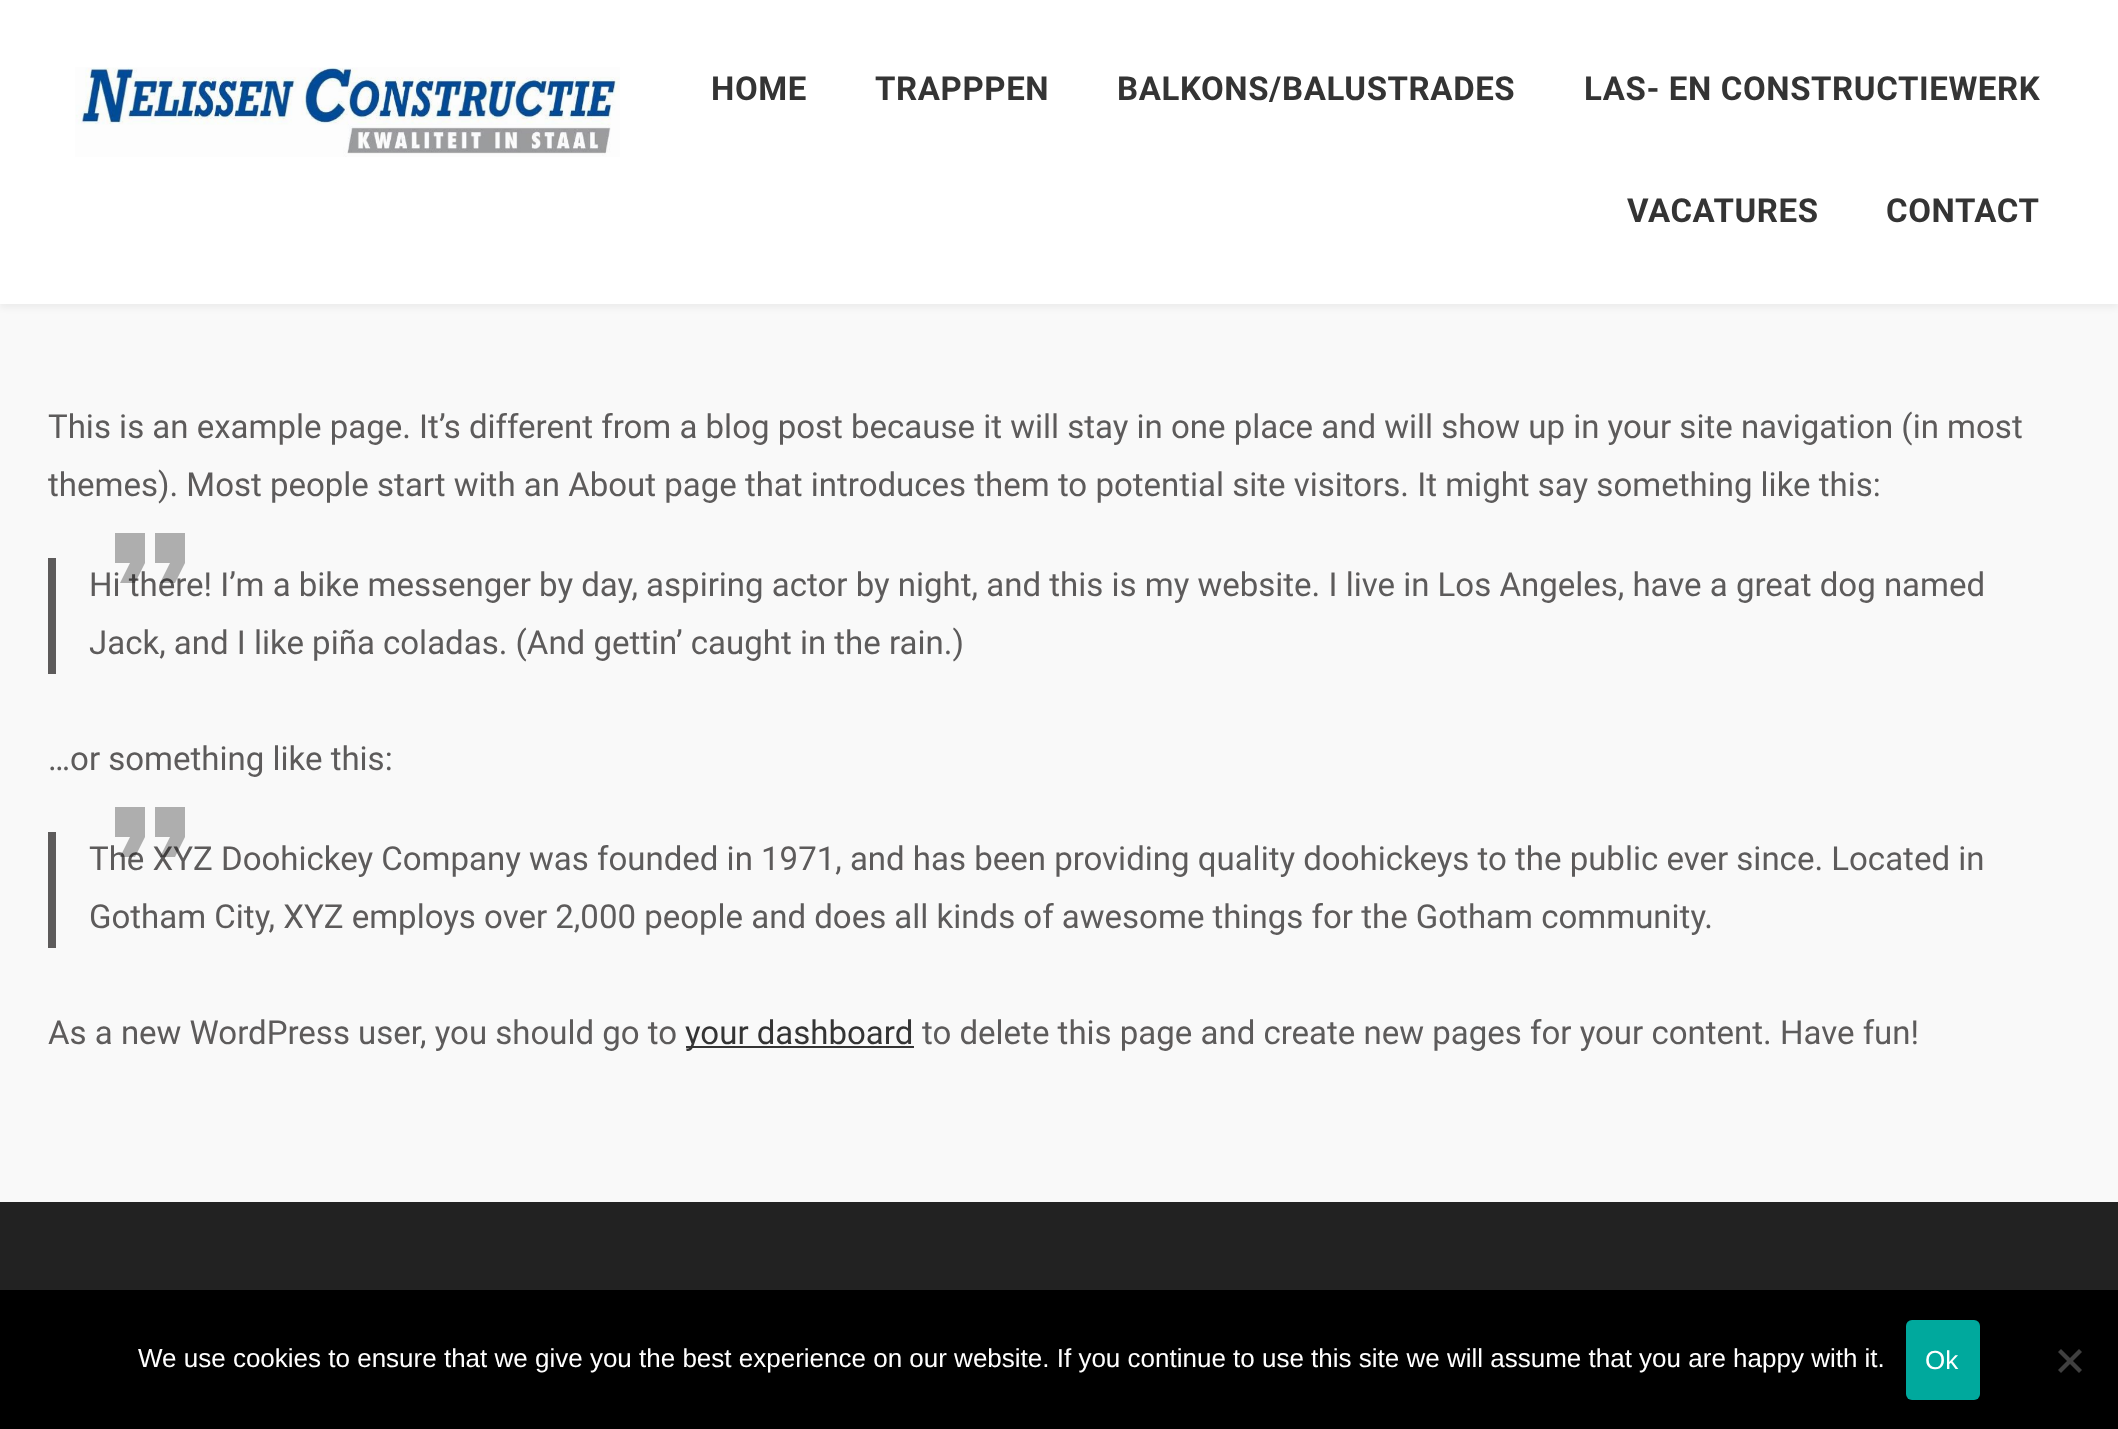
<svg xmlns="http://www.w3.org/2000/svg" width="2118" height="1429">
	<rect width="100%" height="100%" fill="#F9F9F9" />
	<rect x="0" y="4" width="2118" height="304" fill="#000000" fill-opacity="0.05" filter="blur(3px)" />
	<rect x="0" y="0" width="2118" height="304" fill="#FFFFFF" />
	<image x="75" y="67" width="545" height="90" href="assets/img1.png" />
	<g font-family="Roboto" font-size="33" font-weight="700" letter-spacing="0.6" fill="#343434">
		<text x="711" y="100">HOME</text>
		<text x="875" y="100">TRAPPPEN</text>
		<text x="1117" y="100">BALKONS/BALUSTRADES</text>
		<text x="1584" y="100">LAS- EN CONSTRUCTIEWERK</text>
		<text x="1627" y="222">VACATURES</text>
		<text x="1886" y="222">CONTACT</text>
	</g>
	<g font-family="Roboto" font-size="33" fill="#5D5B5B">
		<text x="48" y="438">This is an example page. It’s different from a blog post because it will stay in one place and will show up in your site navigation (in most</text>
		<text x="48" y="496">themes). Most people start with an About page that introduces them to potential site visitors. It might say something like this:</text>
	</g>
	<rect x="48" y="558" width="8" height="116" fill="#5D5B5B" />
	<text x="89" y="596" font-family="Roboto" font-size="33" fill="#5D5B5B">Hi there! I’m a bike messenger by day, aspiring actor by night, and this is my website. I live in Los Angeles, have a great dog named</text>
	<path d="M160 583L170 563H155V533H185V563L175 583ZM120 583L130 563H115V533H145V563L135 583Z" fill="#000000" fill-opacity="0.3" />
	<g font-family="Roboto" font-size="33" fill="#5D5B5B">
		<text x="89" y="654">Jack, and I like piña coladas. (And gettin’ caught in the rain.)</text>
		<text x="48" y="770">…or something like this:</text>
	</g>
	<rect x="48" y="832" width="8" height="116" fill="#5D5B5B" />
	<text x="89" y="870" font-family="Roboto" font-size="33" fill="#5D5B5B">The XYZ Doohickey Company was founded in 1971, and has been providing quality doohickeys to the public ever since. Located in</text>
	<path d="M160 857L170 837H155V807H185V837L175 857ZM120 857L130 837H115V807H145V837L135 857Z" fill="#000000" fill-opacity="0.3" />
	<g font-family="Roboto" font-size="33" fill="#5D5B5B">
		<text x="89" y="928">Gotham City, XYZ employs over 2,000 people and does all kinds of awesome things for the Gotham community.</text>
		<text x="48" y="1044">As a new WordPress user, you should go to</text>
	</g>
	<rect x="686" y="1046" width="228" height="2" fill="#343434" />
	<text x="685" y="1044" font-family="Roboto" font-size="33" fill="#343434">your dashboard</text>
	<text x="922" y="1044" font-family="Roboto" font-size="33" fill="#5D5B5B">to delete this page and create new pages for your content. Have fun!</text>
	<rect x="0" y="1202" width="2118" height="88" fill="#222222" />
	<rect x="0" y="1290" width="2118" height="139" fill="#000000" />
	<text x="138" y="1367" font-family="Liberation Sans" font-size="26" fill="#FFFFFF">We use cookies to ensure that we give you the best experience on our website. If you continue to use this site we will assume that you are happy with it.</text>
	<rect x="1906" y="1320" width="74" height="80" rx="6" fill="#00A99D" />
	<text x="1925" y="1369" font-family="Liberation Sans" font-size="26" fill="#FFFFFF">Ok</text>
	<path d="M2079 1349L2082 1352L2061 1373L2058 1370Z" fill="#404040" />
	<path d="M2058 1352L2061 1349L2082 1370L2079 1373Z" fill="#404040" />
</svg>
